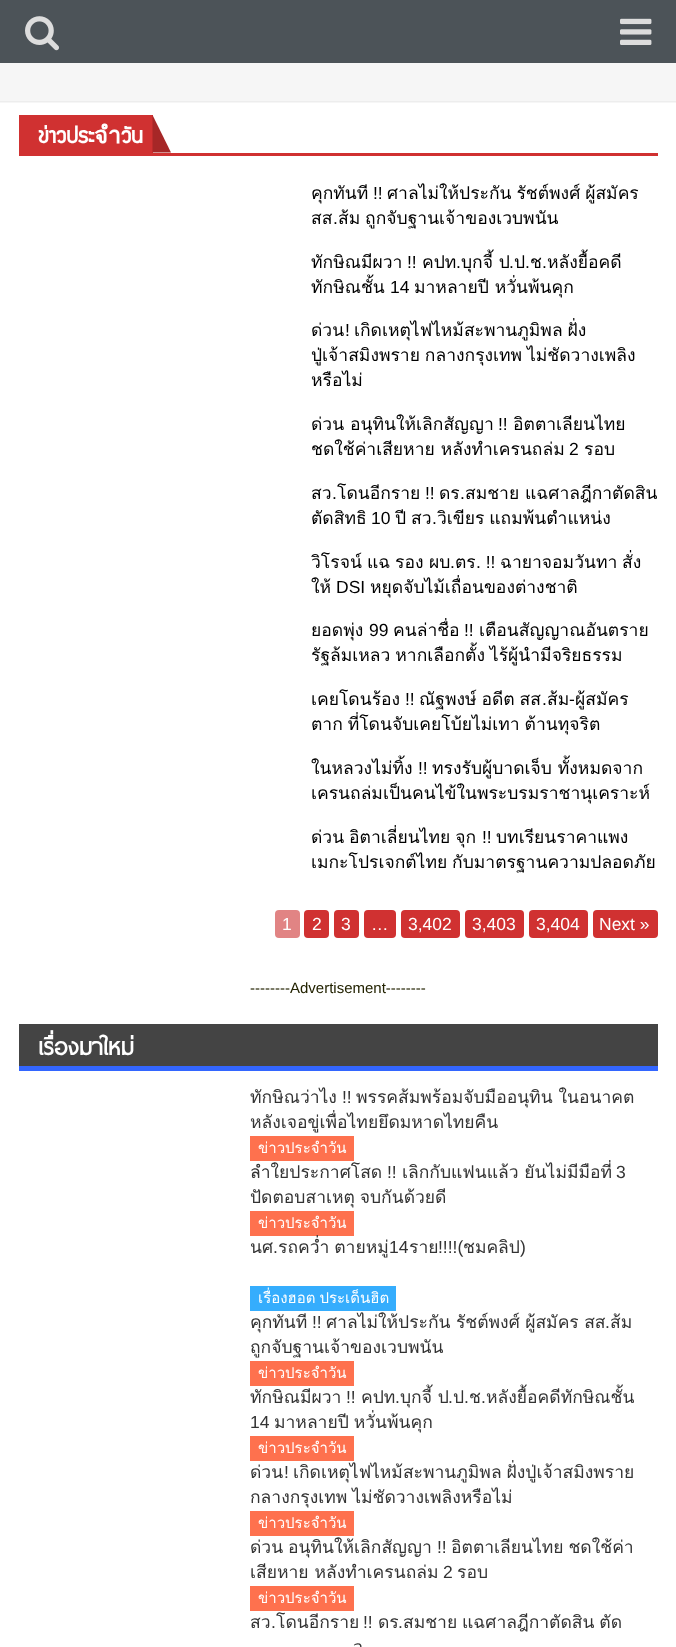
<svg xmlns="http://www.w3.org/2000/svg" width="676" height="1647">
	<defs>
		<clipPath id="clip1"><rect x="250" y="1084" width="389" height="50" /></clipPath>
		<clipPath id="clip2"><rect x="250" y="1159" width="389" height="50" /></clipPath>
		<clipPath id="clip3"><rect x="250" y="1309" width="389" height="50" /></clipPath>
		<clipPath id="clip4"><rect x="250" y="1384" width="389" height="50" /></clipPath>
		<clipPath id="clip5"><rect x="250" y="1459" width="389" height="50" /></clipPath>
		<clipPath id="clip6"><rect x="250" y="1534" width="389" height="50" /></clipPath>
	</defs>
	<rect width="100%" height="100%" fill="#FFFFFF" />
	<rect x="0" y="0" width="676" height="63" fill="#4C5358" />
	<image x="25" y="16" width="34" height="35" href="assets/img1.png" />
	<image x="620" y="18" width="32" height="27" href="assets/img2.png" />
	<rect x="0" y="63" width="676" height="40" fill="#F6F6F6" />
	<rect x="0" y="101" width="676" height="1" fill="#EDEDED" />
	<rect x="19" y="153" width="639" height="3" fill="#D03131" />
	<rect x="19" y="115" width="134" height="38" fill="#D03131" />
	<text x="38" y="143" font-family="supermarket" font-size="23.5" font-weight="700" fill="#FFFFFF">ข่าวประจำวัน</text>
	<path d="M171 152.5H152.5V115Z" fill="#A62727" />
	<text x="311" y="199" font-family="Loma" font-size="17.5" fill="#000000">คุกทันที</text>
	<text x="373" y="199" font-family="Liberation Sans" font-size="17.5" fill="#000000">!!</text>
	<g font-family="Loma" font-size="17.5" fill="#000000">
		<text x="387" y="199" word-spacing="-1">ศาลไม่ให้ประกัน รัชต์พงศ์ ผู้สมัคร</text>
		<text x="311" y="224">สส</text>
	</g>
	<text x="333" y="224" font-family="Liberation Sans" font-size="17.5" fill="#000000">.</text>
	<g font-family="Loma" font-size="17.5" fill="#000000">
		<text x="338" y="224" word-spacing="-1">ส้ม ถูกจับฐานเจ้าของเวบพนัน</text>
		<text x="311" y="268">ทักษิณมีผวา</text>
	</g>
	<text x="407" y="268" font-family="Liberation Sans" font-size="17.5" fill="#000000">!!</text>
	<text x="422" y="268" font-family="Loma" font-size="17.5" fill="#000000">คปท</text>
	<text x="456" y="268" font-family="Liberation Sans" font-size="17.5" fill="#000000">.</text>
	<g font-family="Loma" font-size="17.5" fill="#000000">
		<text x="461" y="268">บุกจี้ ป</text>
		<text x="514" y="268">ป</text>
		<text x="530" y="268">ช</text>
		<text x="547" y="268">หลังยื้อคดี</text>
	</g>
	<g font-family="Liberation Sans" font-size="17.5" fill="#000000">
		<text x="509" y="268">.</text>
		<text x="525" y="268">.</text>
		<text x="542" y="268">.</text>
	</g>
	<text x="311" y="293" font-family="Loma" font-size="17.5" fill="#000000">ทักษิณชั้น</text>
	<text x="390" y="293" font-family="Liberation Sans" font-size="17.5" fill="#000000">14</text>
	<g font-family="Loma" font-size="17.5" fill="#000000">
		<text x="414" y="293">มาหลายปี หวั่นพ้นคุก</text>
		<text x="311" y="336">ด่วน</text>
	</g>
	<text x="345" y="336" font-family="Liberation Sans" font-size="17.5" fill="#000000">!</text>
	<g font-family="Loma" font-size="17.5" fill="#000000">
		<text x="354" y="336" word-spacing="-1">เกิดเหตุไฟไหม้สะพานภูมิพล ฝั่ง</text>
		<text x="311" y="361" word-spacing="-1">ปู่เจ้าสมิงพราย กลางกรุงเทพ ไม่ชัดวางเพลิง</text>
		<text x="311" y="386">หรือไม่</text>
		<text x="311" y="430">ด่วน อนุทินให้เลิกสัญญา</text>
	</g>
	<text x="498" y="430" font-family="Liberation Sans" font-size="17.5" fill="#000000">!!</text>
	<g font-family="Loma" font-size="17.5" fill="#000000">
		<text x="513" y="430">อิตตาเลียนไทย</text>
		<text x="311" y="455">ชดใช้ค่าเสียหาย หลังทำเครนถล่ม</text>
	</g>
	<text x="569" y="455" font-family="Liberation Sans" font-size="17.5" fill="#000000">2</text>
	<g font-family="Loma" font-size="17.5" fill="#000000">
		<text x="584" y="455">รอบ</text>
		<text x="311" y="499">สว</text>
	</g>
	<text x="332" y="499" font-family="Liberation Sans" font-size="17.5" fill="#000000">.</text>
	<text x="337" y="499" font-family="Loma" font-size="17.5" fill="#000000">โดนอีกราย</text>
	<text x="425" y="499" font-family="Liberation Sans" font-size="17.5" fill="#000000">!!</text>
	<text x="439" y="499" font-family="Loma" font-size="17.5" fill="#000000">ดร</text>
	<text x="460" y="499" font-family="Liberation Sans" font-size="17.5" fill="#000000">.</text>
	<g font-family="Loma" font-size="17.5" fill="#000000">
		<text x="465" y="499">สมชาย แฉศาลฎีกาตัดสิน</text>
		<text x="311" y="524">ตัดสิทธิ</text>
	</g>
	<text x="371" y="524" font-family="Liberation Sans" font-size="17.5" fill="#000000">10</text>
	<text x="395" y="524" word-spacing="-1" font-family="Loma" font-size="17.5" fill="#000000">ปี สว</text>
	<text x="432" y="524" font-family="Liberation Sans" font-size="17.5" fill="#000000">.</text>
	<g font-family="Loma" font-size="17.5" fill="#000000">
		<text x="437" y="524" word-spacing="-1">วิเขียร แถมพ้นตำแหน่ง</text>
		<text x="311" y="568">วิโรจน์</text>
		<text x="367" y="568">แฉ</text>
		<text x="395" y="568">รอง</text>
		<text x="429" y="568">ผบ</text>
	</g>
	<text x="450" y="568" font-family="Liberation Sans" font-size="17.5" fill="#000000">.</text>
	<text x="455" y="568" font-family="Loma" font-size="17.5" fill="#000000">ตร</text>
	<text x="476" y="568" font-family="Liberation Sans" font-size="17.5" fill="#000000">. !!</text>
	<g font-family="Loma" font-size="17.5" fill="#000000">
		<text x="500" y="568">ฉายาจอมวันทา</text>
		<text x="622" y="568">สั่ง</text>
		<text x="311" y="593">ให้</text>
	</g>
	<text x="336" y="593" font-family="Liberation Sans" font-size="17.5" fill="#000000">DSI</text>
	<g font-family="Loma" font-size="17.5" fill="#000000">
		<text x="370" y="593">หยุดจับไม้เถื่อนของต่างชาติ</text>
		<text x="311" y="636">ยอดพุ่ง</text>
	</g>
	<text x="369" y="636" font-family="Liberation Sans" font-size="17.5" fill="#000000">99</text>
	<text x="393" y="636" font-family="Loma" font-size="17.5" fill="#000000">คนล่าชื่อ</text>
	<text x="464" y="636" font-family="Liberation Sans" font-size="17.5" fill="#000000">!!</text>
	<g font-family="Loma" font-size="17.5" fill="#000000">
		<text x="479" y="636">เตือนสัญญาณอันตราย</text>
		<text x="311" y="661" word-spacing="-1">รัฐล้มเหลว หากเลือกตั้ง ไร้ผู้นำมีจริยธรรม</text>
		<text x="311" y="705">เคยโดนร้อง</text>
	</g>
	<text x="405" y="705" font-family="Liberation Sans" font-size="17.5" fill="#000000">!!</text>
	<text x="419" y="705" word-spacing="-1" font-family="Loma" font-size="17.5" fill="#000000">ณัฐพงษ์ อดีต สส</text>
	<text x="542" y="705" font-family="Liberation Sans" font-size="17.5" fill="#000000">.</text>
	<text x="547" y="705" font-family="Loma" font-size="17.5" fill="#000000">ส้ม</text>
	<text x="569" y="705" font-family="Liberation Sans" font-size="17.5" fill="#000000">-</text>
	<g font-family="Loma" font-size="17.5" fill="#000000">
		<text x="575" y="705">ผู้สมัคร</text>
		<text x="311" y="730" word-spacing="-1">ตาก ที่โดนจับเคยโบ้ยไม่เทา ต้านทุจริต</text>
		<text x="311" y="774">ในหลวงไม่ทิ้ง</text>
	</g>
	<text x="418" y="774" font-family="Liberation Sans" font-size="17.5" fill="#000000">!!</text>
	<g font-family="Loma" font-size="17.5" fill="#000000">
		<text x="432" y="774">ทรงรับผู้บาดเจ็บ ทั้งหมดจาก</text>
		<text x="311" y="799">เครนถล่มเป็นคนไข้ในพระบรมราชานุเคราะห์</text>
		<text x="311" y="843" word-spacing="-1">ด่วน อิตาเลี่ยนไทย จุก</text>
	</g>
	<text x="482" y="843" font-family="Liberation Sans" font-size="17.5" fill="#000000">!!</text>
	<g font-family="Loma" font-size="17.5" fill="#000000">
		<text x="496" y="843">บทเรียนราคาแพง</text>
		<text x="311" y="868" word-spacing="-1">เมกะโปรเจกต์ไทย กับมาตรฐานความปลอดภัย</text>
	</g>
	<rect x="275" y="910" width="25" height="28" rx="4" fill="#E18484" />
	<text x="282" y="930" font-family="Liberation Sans" font-size="17.5" fill="#FFFFFF">1</text>
	<rect x="304" y="910" width="25" height="28" rx="4" fill="#D03131" />
	<text x="312" y="930" font-family="Liberation Sans" font-size="17.5" fill="#FFFFFF">2</text>
	<rect x="334" y="910" width="25" height="28" rx="4" fill="#D03131" />
	<text x="341" y="930" font-family="Liberation Sans" font-size="17.5" fill="#FFFFFF">3</text>
	<rect x="364" y="910" width="32" height="28" rx="4" fill="#D03131" />
	<text x="371" y="930" font-family="Liberation Sans" font-size="17.5" fill="#FFFFFF">…</text>
	<rect x="401" y="910" width="59" height="28" rx="4" fill="#D03131" />
	<text x="408" y="930" font-family="Liberation Sans" font-size="17.5" fill="#FFFFFF">3,402</text>
	<rect x="465" y="910" width="59" height="28" rx="4" fill="#D03131" />
	<text x="472" y="930" font-family="Liberation Sans" font-size="17.5" fill="#FFFFFF">3,403</text>
	<rect x="529" y="910" width="59" height="28" rx="4" fill="#D03131" />
	<text x="536" y="930" font-family="Liberation Sans" font-size="17.5" fill="#FFFFFF">3,404</text>
	<rect x="593" y="910" width="65" height="28" rx="4" fill="#D03131" />
	<text x="599" y="930" font-family="Liberation Sans" font-size="17.5" fill="#FFFFFF">Next »</text>
	<text x="250" y="993" font-family="Liberation Sans" font-size="15" fill="#222200">--------Advertisement--------</text>
	<rect x="19" y="1024" width="639" height="42" fill="#444444" />
	<rect x="19" y="1066" width="639" height="5" fill="#3366FF" />
	<text x="38" y="1055" font-family="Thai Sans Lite" font-size="30" font-weight="700" fill="#FFFFFF">เรื่องมาใหม่</text>
	<g clip-path="url(#clip1)">
		<text x="250" y="1103" font-family="Loma" font-size="17.5" fill="#333333">ทักษิณว่าไง</text>
	</g>
	<text x="342" y="1103" font-family="Liberation Sans" font-size="17.5" fill="#333333">!!</text>
	<g font-family="Loma" font-size="17.5" fill="#333333">
		<text x="356" y="1103">พรรคส้มพร้อมจับมืออนุทิน ในอนาคต</text>
		<text x="250" y="1128">หลังเจอขู่เพื่อไทยยึดมหาดไทยคืน</text>
	</g>
	<rect x="250" y="1136" width="104" height="25" fill="#FE714E" />
	<text x="258" y="1153" font-family="Loma" font-size="15" fill="#FFFFFF">ข่าวประจำวัน</text>
	<g clip-path="url(#clip2)">
		<text x="250" y="1178" font-family="Loma" font-size="17.5" fill="#333333">ลำใยประกาศโสด</text>
	</g>
	<text x="387" y="1178" font-family="Liberation Sans" font-size="17.5" fill="#333333">!!</text>
	<text x="402" y="1178" font-family="Loma" font-size="17.5" fill="#333333">เลิกกับแฟนแล้ว ยันไม่มีมือที่</text>
	<text x="616" y="1178" font-family="Liberation Sans" font-size="17.5" fill="#333333">3</text>
	<g clip-path="url(#clip2)">
		<text x="250" y="1203" word-spacing="-1" font-family="Loma" font-size="17.5" fill="#333333">ปัดตอบสาเหตุ จบกันด้วยดี</text>
	</g>
	<rect x="250" y="1211" width="104" height="25" fill="#FE714E" />
	<text x="258" y="1228" font-family="Loma" font-size="15" fill="#FFFFFF">ข่าวประจำวัน</text>
	<text x="250" y="1253" font-family="Loma" font-size="17.5" fill="#333333">นศ</text>
	<text x="273" y="1253" font-family="Liberation Sans" font-size="17.5" fill="#333333">.</text>
	<text x="278" y="1253" word-spacing="-1" font-family="Loma" font-size="17.5" fill="#333333">รถคว่ำ ตายหมู่</text>
	<text x="389" y="1253" font-family="Liberation Sans" font-size="17.5" fill="#333333">14</text>
	<text x="409" y="1253" font-family="Loma" font-size="17.5" fill="#333333">ราย</text>
	<text x="438" y="1253" font-family="Liberation Sans" font-size="17.5" fill="#333333">!!!!(</text>
	<text x="463" y="1253" font-family="Loma" font-size="17.5" fill="#333333">ชมคลิป</text>
	<text x="520" y="1253" font-family="Liberation Sans" font-size="17.5" fill="#333333">)</text>
	<rect x="250" y="1286" width="146" height="25" fill="#35ADFD" />
	<text x="258" y="1303" word-spacing="-1" font-family="Loma" font-size="15" fill="#FFFFFF">เรื่องฮอต ประเด็นฮิต</text>
	<g clip-path="url(#clip3)">
		<text x="250" y="1328" font-family="Loma" font-size="17.5" fill="#333333">คุกทันที</text>
	</g>
	<text x="312" y="1328" font-family="Liberation Sans" font-size="17.5" fill="#333333">!!</text>
	<text x="326" y="1328" word-spacing="-0.5" font-family="Loma" font-size="17.5" fill="#333333">ศาลไม่ให้ประกัน รัชต์พงศ์ ผู้สมัคร สส</text>
	<text x="605" y="1328" font-family="Liberation Sans" font-size="17.5" fill="#333333">.</text>
	<text x="610" y="1328" font-family="Loma" font-size="17.5" fill="#333333">ส้ม</text>
	<g clip-path="url(#clip3)">
		<text x="250" y="1353" font-family="Loma" font-size="17.5" fill="#333333">ถูกจับฐานเจ้าของเวบพนัน</text>
	</g>
	<rect x="250" y="1361" width="104" height="25" fill="#FE714E" />
	<text x="258" y="1378" font-family="Loma" font-size="15" fill="#FFFFFF">ข่าวประจำวัน</text>
	<g clip-path="url(#clip4)">
		<text x="250" y="1403" font-family="Loma" font-size="17.5" fill="#333333">ทักษิณมีผวา</text>
	</g>
	<text x="346" y="1403" font-family="Liberation Sans" font-size="17.5" fill="#333333">!!</text>
	<text x="361" y="1403" font-family="Loma" font-size="17.5" fill="#333333">คปท</text>
	<text x="395" y="1403" font-family="Liberation Sans" font-size="17.5" fill="#333333">.</text>
	<g font-family="Loma" font-size="17.5" fill="#333333">
		<text x="400" y="1403">บุกจี้ ป</text>
		<text x="453" y="1403">ป</text>
		<text x="469" y="1403">ช</text>
		<text x="486" y="1403">หลังยื้อคดีทักษิณชั้น</text>
	</g>
	<g font-family="Liberation Sans" font-size="17.5" fill="#333333">
		<text x="448" y="1403">.</text>
		<text x="464" y="1403">.</text>
		<text x="481" y="1403">.</text>
		<text x="250" y="1428">14</text>
	</g>
	<text x="274" y="1428" word-spacing="-1" font-family="Loma" font-size="17.5" fill="#333333">มาหลายปี หวั่นพ้นคุก</text>
	<rect x="250" y="1436" width="104" height="25" fill="#FE714E" />
	<text x="258" y="1453" font-family="Loma" font-size="15" fill="#FFFFFF">ข่าวประจำวัน</text>
	<g clip-path="url(#clip5)">
		<text x="250" y="1478" font-family="Loma" font-size="17.5" fill="#333333">ด่วน</text>
	</g>
	<text x="284" y="1478" font-family="Liberation Sans" font-size="17.5" fill="#333333">!</text>
	<g font-family="Loma" font-size="17.5" fill="#333333">
		<text x="293" y="1478" word-spacing="-1">เกิดเหตุไฟไหม้สะพานภูมิพล ฝั่งปู่เจ้าสมิงพราย</text>
		<text x="250" y="1503" word-spacing="-1">กลางกรุงเทพ ไม่ชัดวางเพลิงหรือไม่</text>
	</g>
	<rect x="250" y="1511" width="104" height="25" fill="#FE714E" />
	<text x="258" y="1528" font-family="Loma" font-size="15" fill="#FFFFFF">ข่าวประจำวัน</text>
	<g clip-path="url(#clip6)">
		<text x="250" y="1553" word-spacing="-1" font-family="Loma" font-size="17.5" fill="#333333">ด่วน อนุทินให้เลิกสัญญา</text>
	</g>
	<text x="437" y="1553" font-family="Liberation Sans" font-size="17.5" fill="#333333">!!</text>
	<text x="451" y="1553" word-spacing="-1" font-family="Loma" font-size="17.5" fill="#333333">อิตตาเลียนไทย ชดใช้ค่า</text>
	<g clip-path="url(#clip6)">
		<text x="250" y="1578" font-family="Loma" font-size="17.5" fill="#333333">เสียหาย หลังทำเครนถล่ม</text>
	</g>
	<text x="443" y="1578" font-family="Liberation Sans" font-size="17.5" fill="#333333">2</text>
	<text x="457" y="1578" font-family="Loma" font-size="17.5" fill="#333333">รอบ</text>
	<rect x="250" y="1586" width="104" height="25" fill="#FE714E" />
	<text x="258" y="1603" font-family="Loma" font-size="15" fill="#FFFFFF">ข่าวประจำวัน</text>
	<text x="250" y="1628" font-family="Loma" font-size="17.5" fill="#333333">สว</text>
	<text x="271" y="1628" font-family="Liberation Sans" font-size="17.5" fill="#333333">.</text>
	<text x="276" y="1628" font-family="Loma" font-size="17.5" fill="#333333">โดนอีกราย</text>
	<text x="363" y="1628" font-family="Liberation Sans" font-size="17.5" fill="#333333">!!</text>
	<text x="378" y="1628" font-family="Loma" font-size="17.5" fill="#333333">ดร</text>
	<text x="398" y="1628" font-family="Liberation Sans" font-size="17.5" fill="#333333">.</text>
	<g font-family="Loma" font-size="17.5" fill="#333333">
		<text x="403" y="1628" word-spacing="-1">สมชาย แฉศาลฎีกาตัดสิน ตัด</text>
		<text x="353" y="1653" word-spacing="-1">ว</text>
	</g>
</svg>
